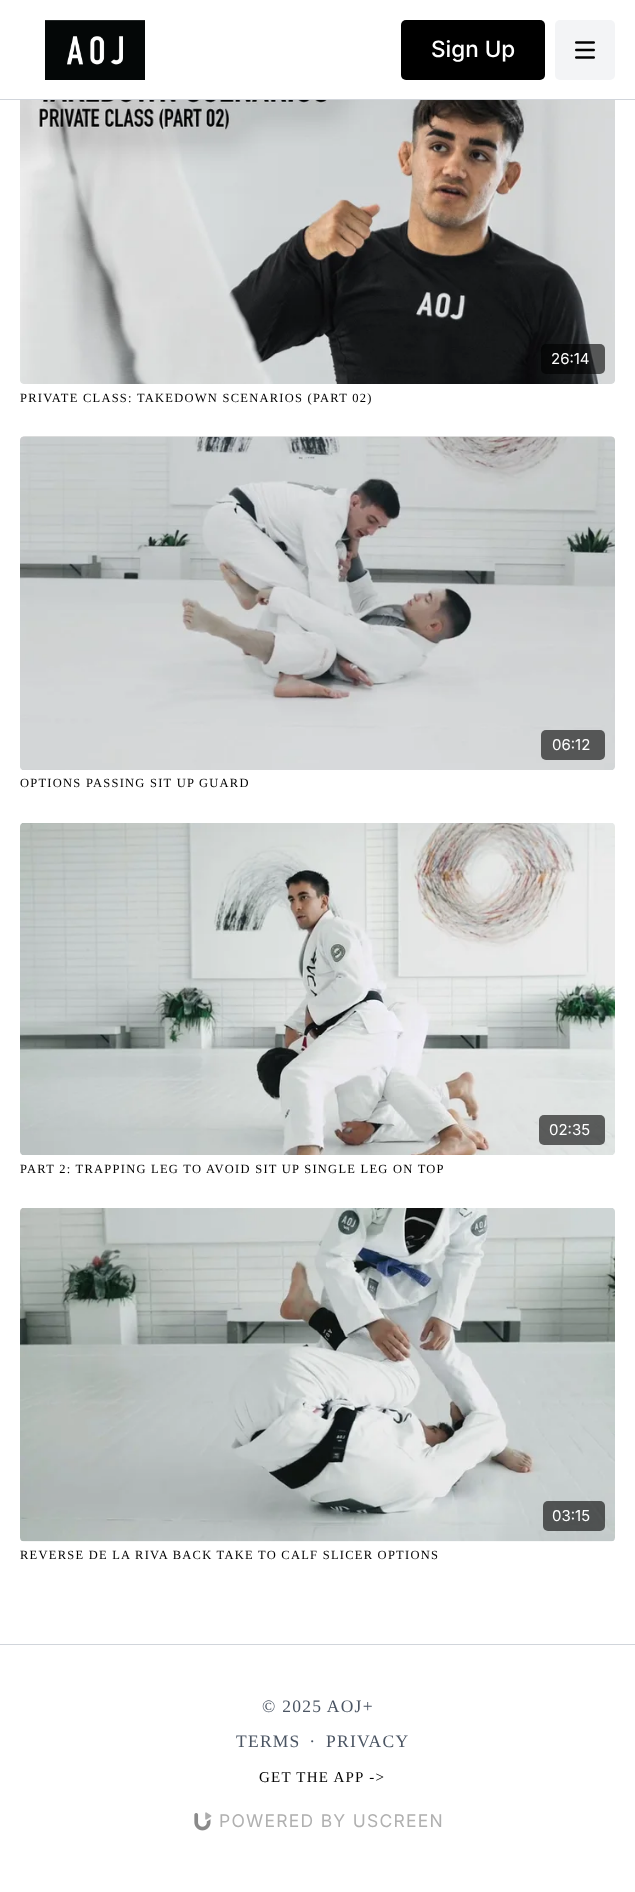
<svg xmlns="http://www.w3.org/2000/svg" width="635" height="1892">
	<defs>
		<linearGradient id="g1" gradientUnits="userSpaceOnUse" x1="20" y1="603" x2="615" y2="603"><stop offset="0.08" stop-color="#DEDEDE" /><stop offset="0.18" stop-color="#E1E1E1" /><stop offset="0.33" stop-color="#E4E4E4" /></linearGradient>
	</defs>
	<rect width="100%" height="100%" fill="#FFFFFF" />
	<rect x="0" y="99" width="635" height="1" fill="#D1D5DB" />
	<image x="45" y="20" width="100" height="60" href="assets/img1.png" />
	<rect x="401" y="20" width="144" height="60" rx="5" fill="#000000" />
	<text x="431" y="57" font-family="Inter" font-size="22.5" font-weight="500" fill="#FFFFFF">Sign Up</text>
	<rect x="555" y="20" width="60" height="60" rx="5" fill="#F3F4F6" />
	<image x="575" y="41" width="20" height="18" href="assets/img2.png" />
	<image x="20" y="100" width="595" height="284" href="assets/img3.png" />
	<rect x="541" y="344" width="64" height="30" rx="5" fill="#000000" fill-opacity="0.6" />
	<text x="551" y="364" font-family="Inter" font-size="15" fill="#FFFFFF">26:14</text>
	<text x="20" y="402" font-family="Liberation Serif" font-size="12.5" letter-spacing="1.25" fill="#000000">PRIVATE CLASS: TAKEDOWN SCENARIOS (PART 02)</text>
	<rect x="20" y="436" width="595" height="334" rx="5" fill="url(#g1)" />
	<image x="20" y="436" width="595" height="334" href="assets/img4.png" />
	<rect x="541" y="730" width="64" height="30" rx="5" fill="#555656" />
	<text x="552" y="750" font-family="Inter" font-size="15" fill="#FFFFFF">06:12</text>
	<text x="20" y="787" font-family="Liberation Serif" font-size="12.5" letter-spacing="1.25" fill="#000000">OPTIONS PASSING SIT UP GUARD</text>
	<image x="20" y="823" width="595" height="332" href="assets/img5.png" />
	<rect x="539" y="1115" width="66" height="30" rx="5" fill="#000000" fill-opacity="0.6" />
	<text x="549" y="1135" font-family="Inter" font-size="15" fill="#FFFFFF">02:35</text>
	<text x="20" y="1173" font-family="Liberation Serif" font-size="12.5" letter-spacing="1.25" fill="#000000">PART 2: TRAPPING LEG TO AVOID SIT UP SINGLE LEG ON TOP</text>
	<image x="20" y="1208" width="595" height="334" href="assets/img6.png" />
	<rect x="543" y="1501" width="62" height="30" rx="5" fill="#000000" fill-opacity="0.6" />
	<text x="552" y="1521" font-family="Inter" font-size="15" fill="#FFFFFF">03:15</text>
	<text x="20" y="1559" font-family="Liberation Serif" font-size="12.5" letter-spacing="1.25" fill="#000000">REVERSE DE LA RIVA BACK TAKE TO CALF SLICER OPTIONS</text>
	<rect x="0" y="1644" width="635" height="1" fill="#D1D5DB" />
	<g font-family="Liberation Serif" font-size="17.5" letter-spacing="1.25" fill="#4B5563">
		<text x="262" y="1712">© 2025 AOJ+</text>
		<text x="236" y="1747">TERMS</text>
		<text x="310" y="1747">∙</text>
		<text x="326" y="1747">PRIVACY</text>
	</g>
	<text x="259" y="1782" font-family="Liberation Serif" font-size="15" letter-spacing="1.25" fill="#000000">GET THE APP -&gt;</text>
	<image x="194" y="1812" width="18" height="19" href="assets/img7.png" />
	<text x="219" y="1827" font-family="Inter" font-size="17.5" letter-spacing="1.25" fill="#B0B0B0">POWERED BY USCREEN</text>
</svg>
